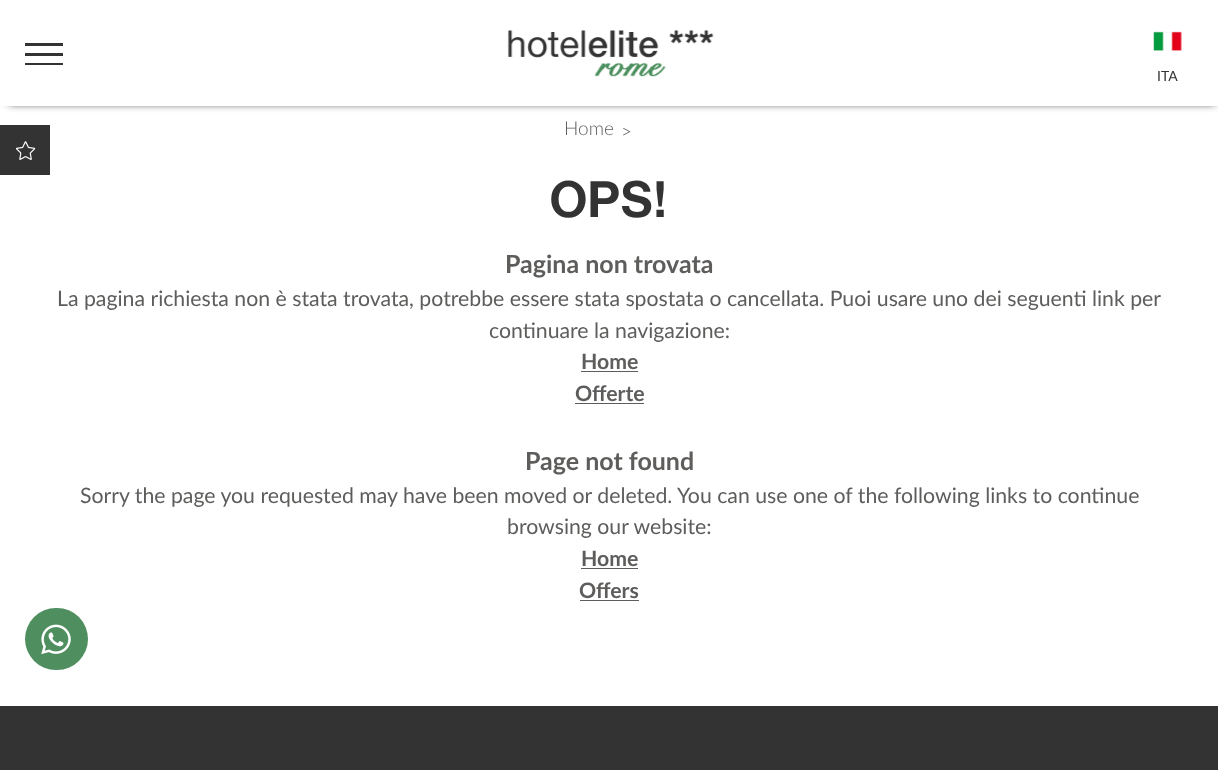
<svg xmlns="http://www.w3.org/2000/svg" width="1218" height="770">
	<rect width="100%" height="100%" fill="#FFFFFF" />
	<rect x="9" y="9" width="1206" height="94" fill="#000000" filter="blur(4px)" />
	<rect x="0" y="0" width="1218" height="106" fill="#FFFFFF" />
	<rect x="25" y="43" width="38" height="3" fill="#333333" />
	<rect x="25" y="53" width="38" height="3" fill="#333333" />
	<rect x="25" y="63" width="38" height="2" fill="#333333" />
	<image x="507" y="30" width="207" height="47" href="assets/img1.png" />
	<image x="1153" y="31" width="29" height="20" href="assets/img2.png" />
	<text x="1157" y="81" font-family="Lato" font-size="14" fill="#333333">ITA</text>
	<rect x="0" y="125" width="50" height="50" fill="#333333" />
	<image x="15" y="141" width="21" height="19" href="assets/img3.png" />
	<g font-family="Lato" font-size="19" font-weight="300" fill="#5E5D5C">
		<text x="564" y="135">Home</text>
		<text x="621" y="138">&gt;</text>
	</g>
	<text x="550" y="217" font-family="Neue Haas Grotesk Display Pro" font-size="50" font-weight="500" letter-spacing="1" fill="#333333">OPS!</text>
	<text x="505" y="273" font-family="Lato" font-size="25" font-weight="700" fill="#5E5D5C">Pagina non trovata</text>
	<g font-family="Lato" font-size="21.25" fill="#5E5D5C">
		<text x="57" y="306">La pagina richiesta non è stata trovata, potrebbe essere stata spostata o cancellata. Puoi usare uno dei seguenti link per</text>
		<text x="489" y="338">continuare la navigazione:</text>
	</g>
	<text x="581" y="369" font-family="Lato" font-size="21.25" font-weight="700" fill="#5E5D5C">Home</text>
	<rect x="581" y="371" width="57" height="1" fill="#5E5D5C" />
	<text x="575" y="401" font-family="Lato" font-size="21.25" font-weight="700" fill="#5E5D5C">Offerte</text>
	<rect x="575" y="403" width="69" height="1" fill="#5E5D5C" />
	<text x="525" y="470" font-family="Lato" font-size="25" font-weight="700" fill="#5E5D5C">Page not found</text>
	<g font-family="Lato" font-size="21.25" fill="#5E5D5C">
		<text x="80" y="503">Sorry the page you requested may have been moved or deleted. You can use one of the following links to continue</text>
		<text x="507" y="534">browsing our website:</text>
	</g>
	<text x="581" y="566" font-family="Lato" font-size="21.25" font-weight="700" fill="#5E5D5C">Home</text>
	<rect x="581" y="568" width="57" height="1" fill="#5E5D5C" />
	<text x="579" y="598" font-family="Lato" font-size="21.25" font-weight="700" fill="#5E5D5C">Offers</text>
	<rect x="580" y="600" width="59" height="1" fill="#5E5D5C" />
	<rect x="25" y="608" width="63" height="62" rx="31" fill="#4E8E5F" />
	<image x="41" y="624" width="30" height="31" href="assets/img4.png" />
	<rect x="0" y="706" width="1218" height="64" fill="#333333" />
</svg>
